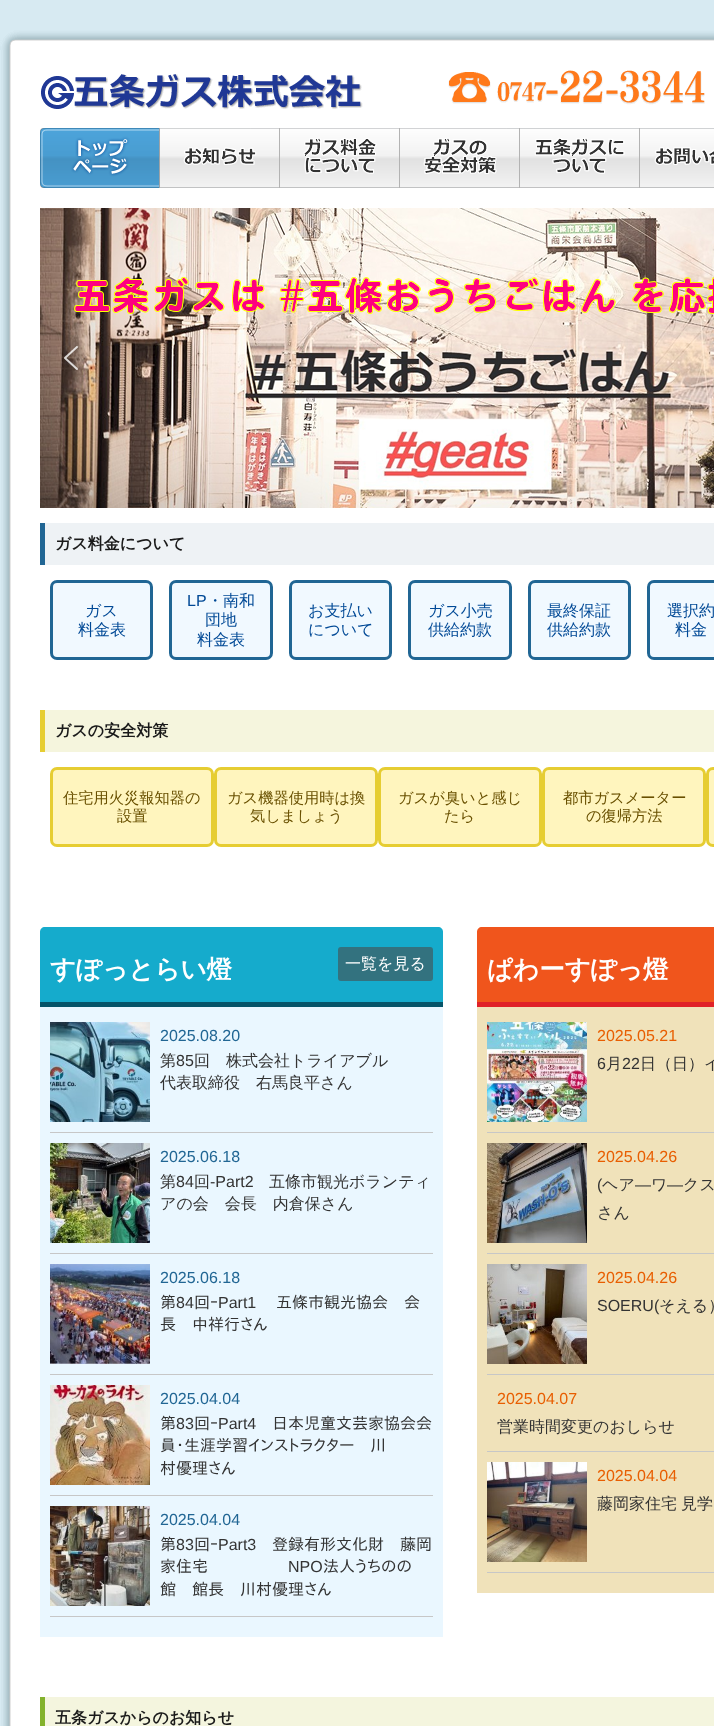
<svg xmlns="http://www.w3.org/2000/svg" width="714" height="1726">
	<rect width="100%" height="100%" fill="#D7EAF2" />
	<image x="1" y="50" width="713" height="1676" href="assets/img1.png" />
	<image x="0" y="0" width="714" height="50" href="assets/img2.png" />
	<image x="41" y="74" width="322" height="36" href="assets/img3.png" />
	<image x="448" y="70" width="257" height="35" href="assets/img4.png" />
	<image x="40" y="128" width="120" height="60" href="assets/img5.png" />
	<image x="160" y="128" width="120" height="60" href="assets/img6.png" />
	<image x="280" y="128" width="120" height="60" href="assets/img7.png" />
	<image x="400" y="128" width="120" height="60" href="assets/img8.png" />
	<image x="520" y="128" width="120" height="60" href="assets/img9.png" />
	<image x="640" y="128" width="74" height="60" href="assets/img10.png" />
	<image x="40" y="208" width="674" height="300" href="assets/img11.png" />
	<image x="64" y="346" width="14" height="24" href="assets/img12.png" />
	<rect x="45" y="523" width="669" height="42" fill="#EEF2F5" />
	<rect x="40" y="523" width="5" height="42" fill="#216694" />
	<text x="55" y="549" font-family="WenQuanYi Zen Hei" font-size="16" font-weight="700" fill="#1A1A1A">ガス料金について</text>
	<rect x="51.5" y="581.5" width="100" height="77" rx="5.5" fill="#F1F9FF" stroke="#216694" stroke-width="3" />
	<g font-family="WenQuanYi Zen Hei" font-size="16" font-weight="500" fill="#004996">
		<text x="85" y="616">ガス</text>
		<text x="78" y="635">料金表</text>
	</g>
	<rect x="170.5" y="581.5" width="101" height="77" rx="5.5" fill="#F1F9FF" stroke="#216694" stroke-width="3" />
	<text x="187" y="606" font-family="Liberation Sans" font-size="16" fill="#004996">LP</text>
	<g font-family="WenQuanYi Zen Hei" font-size="16" font-weight="500" fill="#004996">
		<text x="207" y="606">・南和</text>
		<text x="205" y="625">団地</text>
		<text x="197" y="645">料金表</text>
	</g>
	<rect x="290.5" y="581.5" width="100" height="77" rx="5.5" fill="#F1F9FF" stroke="#216694" stroke-width="3" />
	<g font-family="WenQuanYi Zen Hei" font-size="16" font-weight="500" fill="#004996">
		<text x="308" y="616">お支払い</text>
		<text x="308" y="635">について</text>
	</g>
	<rect x="409.5" y="581.5" width="101" height="77" rx="5.5" fill="#F1F9FF" stroke="#216694" stroke-width="3" />
	<g font-family="WenQuanYi Zen Hei" font-size="16" font-weight="500" fill="#004996">
		<text x="428" y="616">ガス小売</text>
		<text x="428" y="635">供給約款</text>
	</g>
	<rect x="529.5" y="581.5" width="100" height="77" rx="5.5" fill="#F1F9FF" stroke="#216694" stroke-width="3" />
	<g font-family="WenQuanYi Zen Hei" font-size="16" font-weight="500" fill="#004996">
		<text x="547" y="616">最終保証</text>
		<text x="547" y="635">供給約款</text>
	</g>
	<rect x="648.5" y="581.5" width="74" height="77" rx="5.5" fill="#F1F9FF" stroke="#216694" stroke-width="3" />
	<g font-family="WenQuanYi Zen Hei" font-size="16" font-weight="500" fill="#004996">
		<text x="667" y="616">選択約</text>
		<text x="675" y="635">料金</text>
	</g>
	<rect x="45" y="710" width="669" height="42" fill="#F5F5DD" />
	<rect x="40" y="710" width="5" height="42" fill="#E6CD32" />
	<text x="55" y="736" font-family="WenQuanYi Zen Hei" font-size="16" font-weight="700" fill="#1A1A1A">ガスの安全対策</text>
	<rect x="51.5" y="768.5" width="161" height="77" rx="5.5" fill="#FFF5BE" stroke="#E6CD32" stroke-width="3" />
	<g font-family="WenQuanYi Zen Hei" font-size="15.25" font-weight="500" fill="#695000">
		<text x="63" y="803">住宅用火災報知器の</text>
		<text x="117" y="821">設置</text>
	</g>
	<rect x="215.5" y="768.5" width="161" height="77" rx="5.5" fill="#FFF5BE" stroke="#E6CD32" stroke-width="3" />
	<g font-family="WenQuanYi Zen Hei" font-size="15.25" font-weight="500" fill="#695000">
		<text x="227" y="803">ガス機器使用時は換</text>
		<text x="250" y="821">気しましょう</text>
	</g>
	<rect x="379.5" y="768.5" width="161" height="77" rx="5.5" fill="#FFF5BE" stroke="#E6CD32" stroke-width="3" />
	<g font-family="WenQuanYi Zen Hei" font-size="15.25" font-weight="500" fill="#695000">
		<text x="398" y="803">ガスが臭いと感じ</text>
		<text x="444" y="821">たら</text>
	</g>
	<rect x="543.5" y="768.5" width="161" height="77" rx="5.5" fill="#FFF5BE" stroke="#E6CD32" stroke-width="3" />
	<g font-family="WenQuanYi Zen Hei" font-size="15.25" font-weight="500" fill="#695000">
		<text x="563" y="803">都市ガスメーター</text>
		<text x="586" y="821">の復帰方法</text>
	</g>
	<rect x="707.5" y="768.5" width="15" height="77" rx="5.5" fill="#FFF5BE" stroke="#E6CD32" stroke-width="3" />
	<path d="M45 927H438C441 927 443 929 443 932V1007H40V932C40 929 42 927 45 927Z" fill="#15ABCC" />
	<rect x="40" y="1002" width="403" height="5" fill="#055469" />
	<text x="50" y="978" font-family="WenQuanYi Zen Hei" font-size="25.5" font-weight="700" fill="#FFFFFF">すぽっとらい燈</text>
	<rect x="338" y="947" width="95" height="34" rx="3" fill="#33727F" />
	<text x="345" y="969" font-family="WenQuanYi Zen Hei" font-size="16" font-weight="500" fill="#FFFFFF">一覧を見る</text>
	<rect x="40" y="1007" width="403" height="630" fill="#EAF7FF" />
	<rect x="50" y="1132" width="383" height="1" fill="#C7C7C7" />
	<image x="50" y="1022" width="100" height="100" href="assets/img13.png" />
	<text x="160" y="1041" font-family="Liberation Sans" font-size="16" fill="#216694">2025.08.20</text>
	<text x="160" y="1066" font-family="WenQuanYi Zen Hei" font-size="16" font-weight="500" fill="#333333">第</text>
	<text x="176" y="1066" font-family="Liberation Sans" font-size="16" fill="#333333">85</text>
	<g font-family="WenQuanYi Zen Hei" font-size="16" font-weight="500" fill="#333333">
		<text x="194" y="1066">回　株式会社トライアブル</text>
		<text x="160" y="1088">代表取締役　右馬良平さん</text>
	</g>
	<rect x="50" y="1253" width="383" height="1" fill="#C7C7C7" />
	<image x="50" y="1143" width="100" height="100" href="assets/img14.png" />
	<text x="160" y="1162" font-family="Liberation Sans" font-size="16" fill="#216694">2025.06.18</text>
	<text x="160" y="1187" font-family="WenQuanYi Zen Hei" font-size="16" font-weight="500" fill="#333333">第</text>
	<text x="176" y="1187" font-family="Liberation Sans" font-size="16" fill="#333333">84</text>
	<text x="194" y="1187" font-family="WenQuanYi Zen Hei" font-size="16" font-weight="500" fill="#333333">回</text>
	<text x="210" y="1187" font-family="Liberation Sans" font-size="16" fill="#333333">-Part2</text>
	<g font-family="WenQuanYi Zen Hei" font-size="16" font-weight="500" fill="#333333">
		<text x="269" y="1187">五條市観光ボランティ</text>
		<text x="160" y="1209">アの会　会長　内倉保さん</text>
	</g>
	<rect x="50" y="1374" width="383" height="1" fill="#C7C7C7" />
	<image x="50" y="1264" width="100" height="100" href="assets/img15.png" />
	<text x="160" y="1283" font-family="Liberation Sans" font-size="16" fill="#216694">2025.06.18</text>
	<text x="160" y="1308" font-family="IPAPGothic" font-size="16" fill="#333333">第</text>
	<text x="176" y="1308" font-family="Liberation Sans" font-size="16" fill="#333333">84</text>
	<text x="194" y="1308" font-family="IPAPGothic" font-size="16" fill="#333333">回ｰ</text>
	<text x="218" y="1308" font-family="Liberation Sans" font-size="16" fill="#333333">Part1</text>
	<g font-family="IPAPGothic" font-size="16" fill="#333333">
		<text x="276" y="1308">五條市観光協会　会</text>
		<text x="160" y="1330">長　中祥行さん</text>
	</g>
	<rect x="50" y="1495" width="383" height="1" fill="#C7C7C7" />
	<image x="50" y="1385" width="100" height="100" href="assets/img16.png" />
	<text x="160" y="1404" font-family="Liberation Sans" font-size="16" fill="#216694">2025.04.04</text>
	<text x="160" y="1429" font-family="IPAPGothic" font-size="16" fill="#333333">第</text>
	<text x="176" y="1429" font-family="Liberation Sans" font-size="16" fill="#333333">83</text>
	<text x="194" y="1429" font-family="IPAPGothic" font-size="16" fill="#333333">回ｰ</text>
	<text x="218" y="1429" font-family="Liberation Sans" font-size="16" fill="#333333">Part4</text>
	<g font-family="IPAPGothic" font-size="16" fill="#333333">
		<text x="272" y="1429">日本児童文芸家協会会</text>
		<text x="160" y="1451">員・生涯学習インストラクター　川</text>
		<text x="160" y="1474">村優理さん</text>
	</g>
	<rect x="50" y="1616" width="383" height="1" fill="#C7C7C7" />
	<image x="50" y="1506" width="100" height="100" href="assets/img17.png" />
	<text x="160" y="1525" font-family="Liberation Sans" font-size="16" fill="#216694">2025.04.04</text>
	<text x="160" y="1550" font-family="IPAPGothic" font-size="16" fill="#333333">第</text>
	<text x="176" y="1550" font-family="Liberation Sans" font-size="16" fill="#333333">83</text>
	<text x="194" y="1550" font-family="IPAPGothic" font-size="16" fill="#333333">回ｰ</text>
	<text x="218" y="1550" font-family="Liberation Sans" font-size="16" fill="#333333">Part3</text>
	<g font-family="IPAPGothic" font-size="16" fill="#333333">
		<text x="272" y="1550">登録有形文化財　藤岡</text>
		<text x="160" y="1572">家住宅</text>
	</g>
	<text x="288" y="1572" font-family="Liberation Sans" font-size="16" fill="#333333">NPO</text>
	<g font-family="IPAPGothic" font-size="16" fill="#333333">
		<text x="323" y="1572">法人うちのの</text>
		<text x="160" y="1595">館　館長　川村優理さん</text>
	</g>
	<path d="M482 927H714C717 927 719 929 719 932V1007H477V932C477 929 479 927 482 927Z" fill="#F0551C" />
	<rect x="477" y="1002" width="237" height="5" fill="#E02128" />
	<text x="487" y="978" font-family="WenQuanYi Zen Hei" font-size="25.5" font-weight="700" fill="#FFFFFF">ぱわーすぽっ燈</text>
	<rect x="477" y="1007" width="237" height="586" fill="#F0E2BA" />
	<rect x="487" y="1132" width="227" height="1" fill="#C7C7C7" />
	<image x="487" y="1022" width="100" height="100" href="assets/img18.png" />
	<text x="597" y="1041" font-family="Liberation Sans" font-size="16" fill="#E85E01">2025.05.21</text>
	<text x="597" y="1069" font-family="Liberation Sans" font-size="16" fill="#333333">6</text>
	<text x="606" y="1069" font-family="WenQuanYi Zen Hei" font-size="16" font-weight="500" fill="#333333">月</text>
	<text x="622" y="1069" font-family="Liberation Sans" font-size="16" fill="#333333">22</text>
	<text x="640" y="1069" font-family="WenQuanYi Zen Hei" font-size="16" font-weight="500" fill="#333333">日（日）イ</text>
	<rect x="487" y="1253" width="227" height="1" fill="#C7C7C7" />
	<image x="487" y="1143" width="100" height="100" href="assets/img19.png" />
	<text x="597" y="1162" font-family="Liberation Sans" font-size="16" fill="#E85E01">2025.04.26</text>
	<text x="597" y="1190" font-family="Liberation Sans" font-size="16" fill="#333333">(</text>
	<text x="602" y="1190" font-family="WenQuanYi Zen Hei" font-size="16" font-weight="500" fill="#333333">ヘア</text>
	<text x="635" y="1190" font-family="Liberation Sans" font-size="16" fill="#333333">―</text>
	<text x="651" y="1190" font-family="WenQuanYi Zen Hei" font-size="16" font-weight="500" fill="#333333">ワ</text>
	<text x="667" y="1190" font-family="Liberation Sans" font-size="16" fill="#333333">―</text>
	<g font-family="WenQuanYi Zen Hei" font-size="16" font-weight="500" fill="#333333">
		<text x="683" y="1190">クス</text>
		<text x="597" y="1218">さん</text>
	</g>
	<rect x="487" y="1374" width="227" height="1" fill="#C7C7C7" />
	<image x="487" y="1264" width="100" height="100" href="assets/img20.png" />
	<text x="597" y="1283" font-family="Liberation Sans" font-size="16" fill="#E85E01">2025.04.26</text>
	<text x="597" y="1311" font-family="Liberation Sans" font-size="16" fill="#333333">SOERU(</text>
	<text x="659" y="1311" font-family="WenQuanYi Zen Hei" font-size="16" font-weight="500" fill="#333333">そえる）</text>
	<rect x="487" y="1451" width="227" height="1" fill="#C7C7C7" />
	<text x="497" y="1404" font-family="Liberation Sans" font-size="16" fill="#E85E01">2025.04.07</text>
	<text x="497" y="1432" font-family="WenQuanYi Zen Hei" font-size="16" font-weight="500" fill="#333333">営業時間変更のおしらせ</text>
	<rect x="487" y="1572" width="227" height="1" fill="#C7C7C7" />
	<image x="487" y="1462" width="100" height="100" href="assets/img21.png" />
	<text x="597" y="1481" font-family="Liberation Sans" font-size="16" fill="#E85E01">2025.04.04</text>
	<g font-family="WenQuanYi Zen Hei" font-size="16" font-weight="500" fill="#333333">
		<text x="597" y="1509">藤岡家住宅</text>
		<text x="681" y="1509">見学</text>
	</g>
	<rect x="45" y="1697" width="669" height="29" fill="#F4F5DE" />
	<rect x="40" y="1697" width="5" height="29" fill="#83B22D" />
	<text x="55" y="1723" font-family="WenQuanYi Zen Hei" font-size="16" font-weight="700" fill="#1A1A1A">五条ガスからのお知らせ</text>
</svg>
